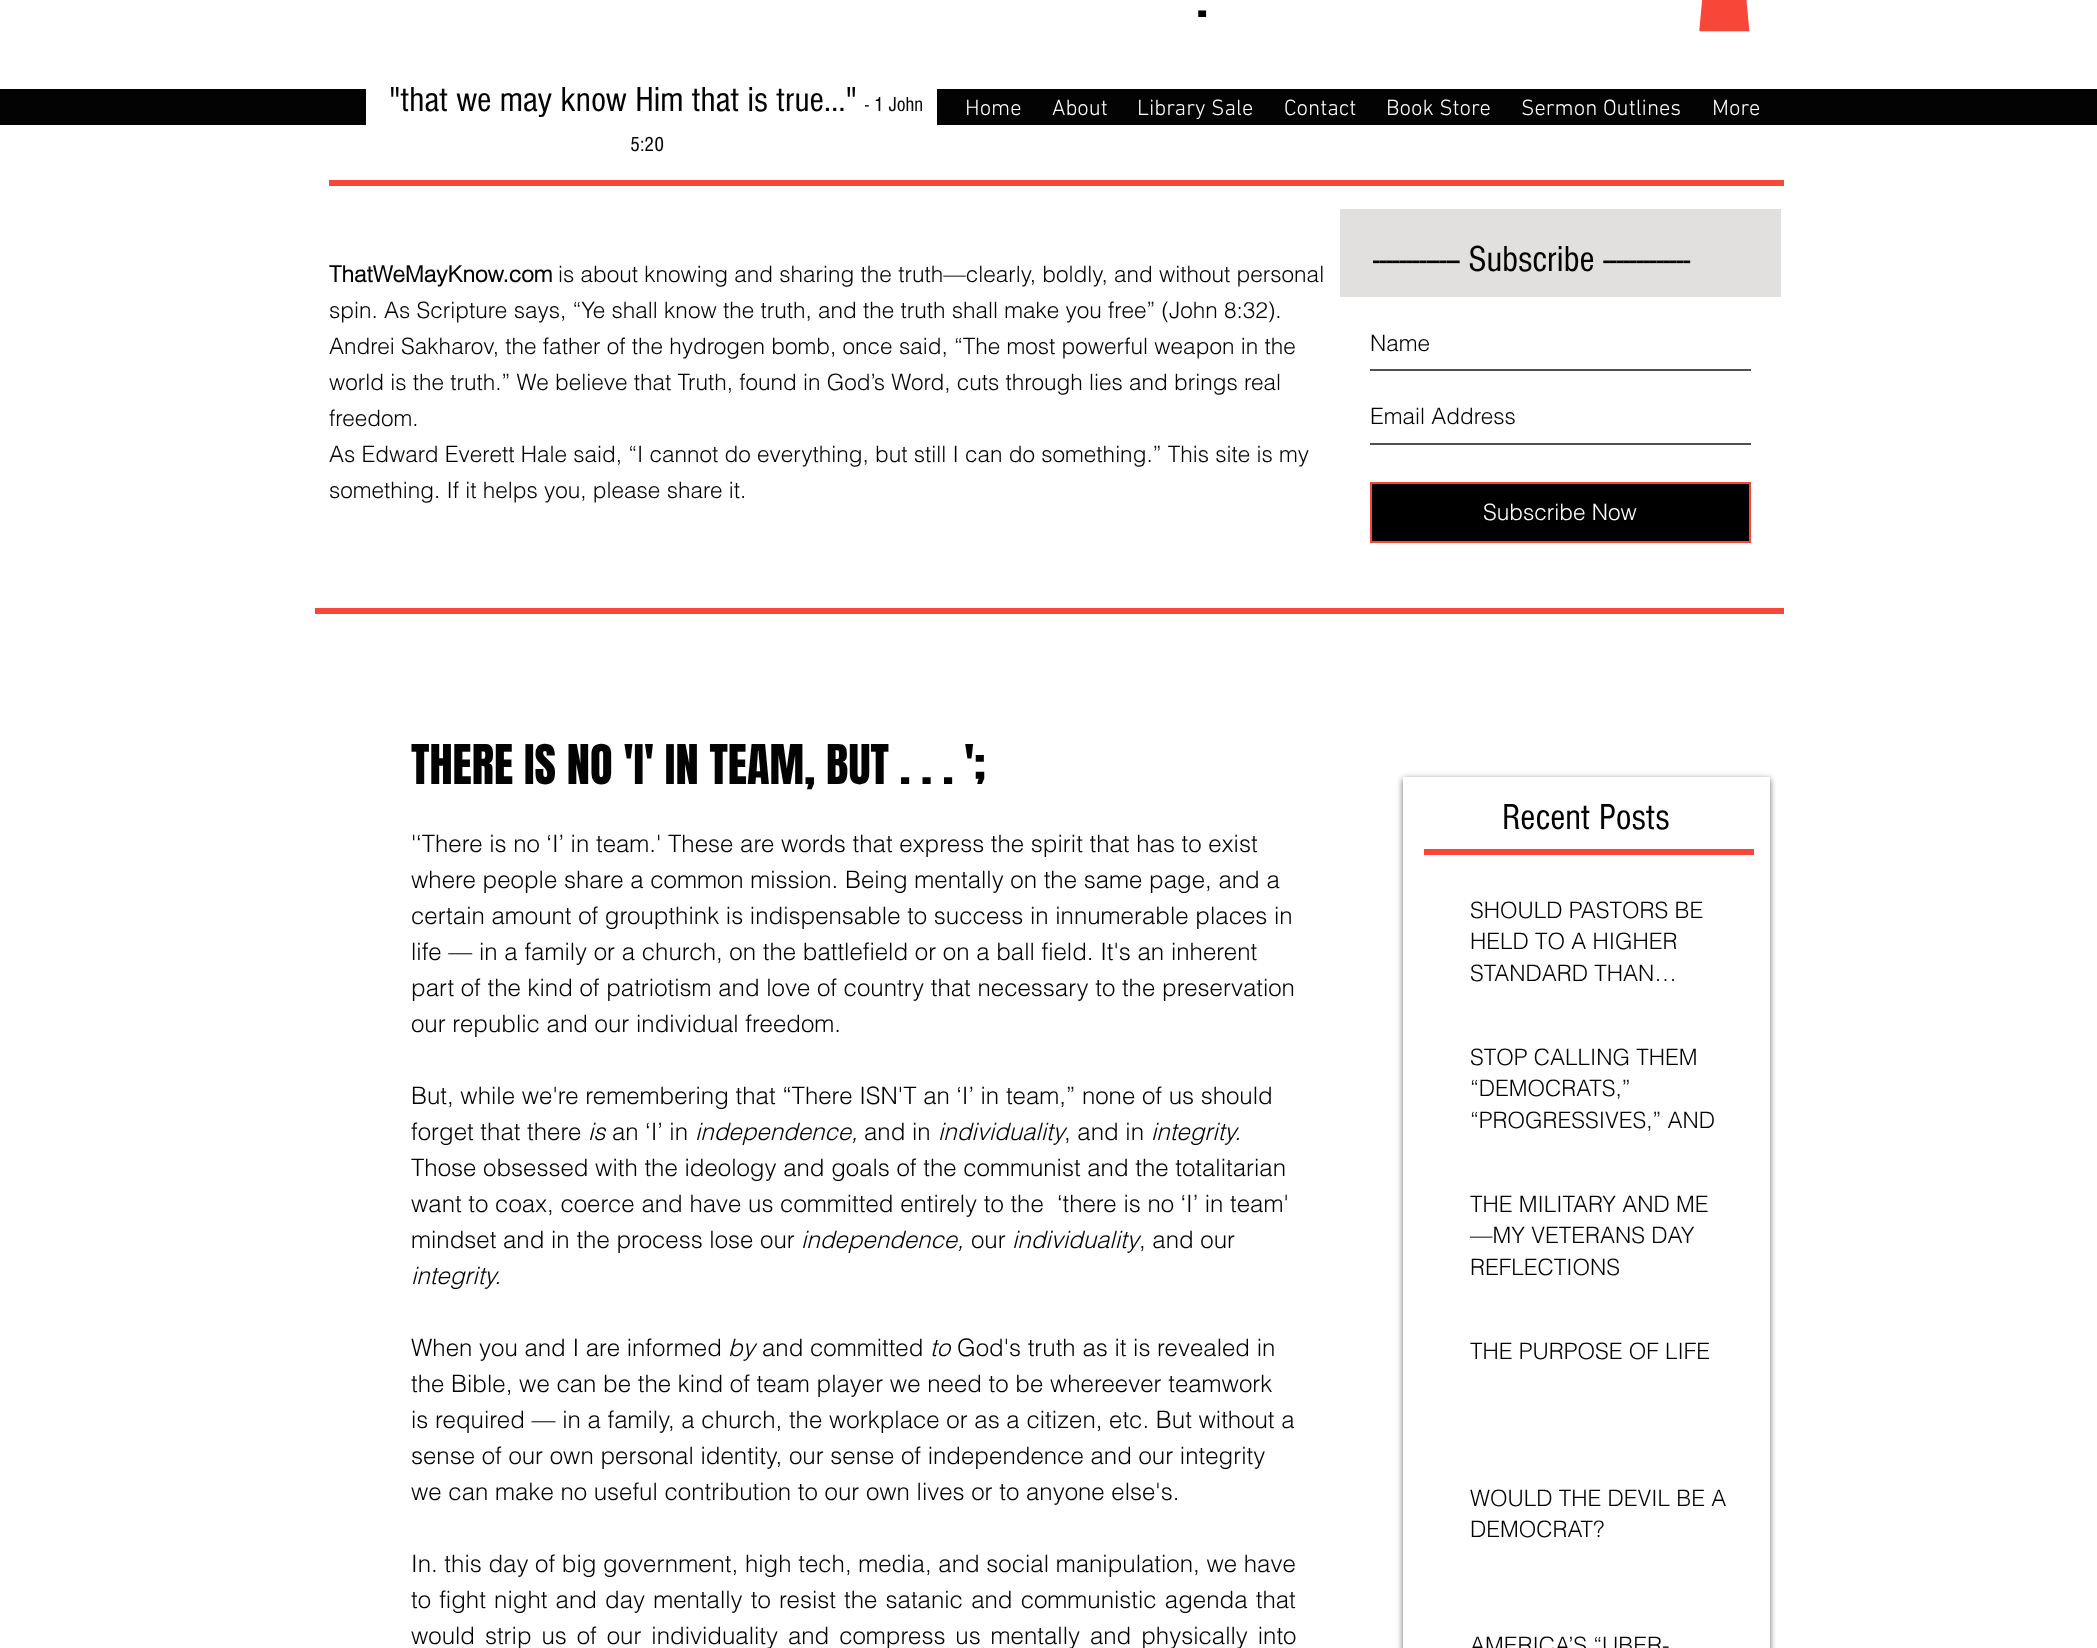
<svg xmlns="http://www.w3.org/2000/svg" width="2097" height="1648">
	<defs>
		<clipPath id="clip1"><path d="M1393 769H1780V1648H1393ZM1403 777H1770V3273H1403Z" clip-rule="evenodd" /></clipPath>
	</defs>
	<rect width="100%" height="100%" fill="#FFFFFF" />
	<text x="1197" y="17" font-family="Anton" font-size="45" fill="#030303">.</text>
	<image x="1699" y="0" width="51" height="32" href="assets/img1.png" />
	<rect x="0" y="89" width="2097" height="36" fill="#030303" />
	<rect x="366" y="89" width="571" height="36" fill="#FFFFFF" />
	<text x="389" y="111" font-family="'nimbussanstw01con'" font-size="36" fill="#030303">"that we may know Him that is true..."</text>
	<g font-family="'nimbussanstw01con'" font-size="21" fill="#030303">
		<text x="865" y="111">- 1 John</text>
		<text x="630" y="151">5:20</text>
	</g>
	<g font-family="'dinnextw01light'" font-size="22.5" font-weight="300" fill="#FFFFFF">
		<text x="965" y="115">Home</text>
		<text x="1052" y="115">About</text>
		<text x="1137" y="115">Library Sale</text>
		<text x="1284" y="115">Contact</text>
		<text x="1386" y="115">Book Store</text>
		<text x="1521" y="115">Sermon Outlines</text>
		<text x="1712" y="115">More</text>
	</g>
	<rect x="329" y="180" width="1455" height="6" fill="#F84738" />
	<text x="329" y="282" font-family="helvetica" font-size="22.5" font-weight="700" fill="#030303">ThatWeMayKnow.com</text>
	<g font-family="helvetica" font-size="22.5" font-weight="300" fill="#030303">
		<text x="558" y="282">is about knowing and sharing the truth—clearly, boldly, and without personal</text>
		<text x="329" y="318">spin. As Scripture says, “Ye shall know the truth, and the truth shall make you free” (John 8:32).</text>
		<text x="329" y="354">Andrei Sakharov, the father of the hydrogen bomb, once said, “The most powerful weapon in the</text>
		<text x="329" y="390">world is the truth.” We believe that Truth, found in God’s Word, cuts through lies and brings real</text>
		<text x="329" y="426">freedom.</text>
		<text x="329" y="462">As Edward Everett Hale said, “I cannot do everything, but still I can do something.” This site is my</text>
		<text x="329" y="498">something. If it helps you, please share it.</text>
	</g>
	<rect x="1340" y="209" width="441" height="88" fill="#E2DFDF" />
	<text x="1373" y="271" font-family="'nimbussanstw01con'" font-size="37.5" fill="#030303">------------- Subscribe -------------</text>
	<rect x="1370" y="369" width="381" height="2" fill="#514F4F" />
	<text x="1370" y="351" font-family="helvetica" font-size="22.5" font-weight="300" fill="#030303">Name</text>
	<rect x="1370" y="443" width="381" height="2" fill="#514F4F" />
	<text x="1370" y="424" font-family="helvetica" font-size="22.5" font-weight="300" fill="#030303">Email Address</text>
	<rect x="1371" y="483" width="379" height="59" fill="#000000" stroke="#F84738" stroke-width="2" />
	<text x="1483" y="520" font-family="helvetica" font-size="22.5" font-weight="300" fill="#FFFFFF">Subscribe Now</text>
	<rect x="315" y="608" width="1469" height="6" fill="#F84738" />
	<text x="411" y="784" font-family="Anton" font-size="46.5" fill="#030303">THERE IS NO 'I' IN TEAM, BUT . . . ';</text>
	<g font-family="helvetica" font-size="24" font-weight="300" fill="#030303">
		<text x="411" y="852">'‘There is no ‘I’ in team.' These are words that express the spirit that has to exist</text>
		<text x="411" y="888">where people share a common mission. Being mentally on the same page, and a</text>
		<text x="411" y="924">certain amount of groupthink is indispensable to success in innumerable places in</text>
		<text x="411" y="960">life — in a family or a church, on the battlefield or on a ball field. It's an inherent</text>
		<text x="411" y="996">part of the kind of patriotism and love of country that necessary to the preservation</text>
		<text x="411" y="1032">our republic and our individual freedom.</text>
		<text x="411" y="1104">But, while we're remembering that “There ISN'T an ‘I’ in team,” none of us should</text>
		<text x="411" y="1140">forget that there</text>
	</g>
	<text x="588" y="1140" font-family="helvetica" font-size="24" font-weight="300" font-style="italic" fill="#030303">is</text>
	<text x="612" y="1140" font-family="helvetica" font-size="24" font-weight="300" fill="#030303">an ‘I’ in</text>
	<text x="695" y="1140" font-family="helvetica" font-size="24" font-weight="300" font-style="italic" fill="#030303">independence,</text>
	<text x="864" y="1140" font-family="helvetica" font-size="24" font-weight="300" fill="#030303">and in</text>
	<text x="938" y="1140" font-family="helvetica" font-size="24" font-weight="300" font-style="italic" fill="#030303">individuality</text>
	<text x="1064" y="1140" font-family="helvetica" font-size="24" font-weight="300" fill="#030303">, and in</text>
	<text x="1151" y="1140" font-family="helvetica" font-size="24" font-weight="300" font-style="italic" fill="#030303">integrity.</text>
	<g font-family="helvetica" font-size="24" font-weight="300" fill="#030303">
		<text x="411" y="1176">Those obsessed with the ideology and goals of the communist and the totalitarian</text>
		<text x="411" y="1212" xml:space="preserve">want to coax, coerce and have us committed entirely to the  ‘there is no ‘I’ in team'</text>
		<text x="411" y="1248">mindset and in the process lose our</text>
	</g>
	<text x="801" y="1248" font-family="helvetica" font-size="24" font-weight="300" font-style="italic" fill="#030303">independence,</text>
	<text x="971" y="1248" font-family="helvetica" font-size="24" font-weight="300" fill="#030303">our</text>
	<text x="1012" y="1248" font-family="helvetica" font-size="24" font-weight="300" font-style="italic" fill="#030303">individuality</text>
	<text x="1139" y="1248" font-family="helvetica" font-size="24" font-weight="300" fill="#030303">, and our</text>
	<text x="411" y="1284" font-family="helvetica" font-size="24" font-weight="300" font-style="italic" fill="#030303">integrity.</text>
	<text x="411" y="1356" font-family="helvetica" font-size="24" font-weight="300" fill="#030303">When you and I are informed</text>
	<text x="728" y="1356" font-family="helvetica" font-size="24" font-weight="300" font-style="italic" fill="#030303">by</text>
	<text x="762" y="1356" font-family="helvetica" font-size="24" font-weight="300" fill="#030303">and committed</text>
	<text x="930" y="1356" font-family="helvetica" font-size="24" font-weight="300" font-style="italic" fill="#030303">to</text>
	<g font-family="helvetica" font-size="24" font-weight="300" fill="#030303">
		<text x="957" y="1356">God's truth as it is revealed in</text>
		<text x="411" y="1392">the Bible, we can be the kind of team player we need to be whereever teamwork</text>
		<text x="411" y="1428">is required — in a family, a church, the workplace or as a citizen, etc. But without a</text>
		<text x="411" y="1464">sense of our own personal identity, our sense of independence and our integrity</text>
		<text x="411" y="1500">we can make no useful contribution to our own lives or to anyone else's.</text>
		<text x="411" y="1572">In. this day of big government, high tech, media, and social manipulation, we have</text>
		<text x="411" y="1608" word-spacing="1.5">to fight night and day mentally to resist the satanic and communistic agenda that</text>
		<text x="411" y="1644" word-spacing="3.25">would strip us of our individuality and compress us mentally and physically into</text>
	</g>
	<g clip-path="url(#clip1)">
		<rect x="1403" y="779" width="367" height="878" fill="#000000" fill-opacity="0.6" filter="blur(3px)" />
	</g>
	<text x="1502" y="829" font-family="'nimbussanstw01con'" font-size="37.5" fill="#030303">Recent Posts</text>
	<rect x="1424" y="849" width="330" height="6" fill="#F84738" />
	<g font-family="helvetica" font-size="22.5" font-weight="300" fill="#030303">
		<text x="1470" y="918">SHOULD PASTORS BE</text>
		<text x="1470" y="949">HELD TO A HIGHER</text>
		<text x="1470" y="981">STANDARD THAN…</text>
		<text x="1470" y="1065">STOP CALLING THEM</text>
		<text x="1470" y="1096">“DEMOCRATS,”</text>
		<text x="1470" y="1128">“PROGRESSIVES,” AND</text>
		<text x="1470" y="1212">THE MILITARY AND ME</text>
		<text x="1470" y="1243">—MY VETERANS DAY</text>
		<text x="1470" y="1275">REFLECTIONS</text>
		<text x="1470" y="1359">THE PURPOSE OF LIFE</text>
		<text x="1470" y="1506">WOULD THE DEVIL BE A</text>
		<text x="1470" y="1537">DEMOCRAT?</text>
		<text x="1470" y="1653">AMERICA’S “UBER-</text>
	</g>
</svg>
